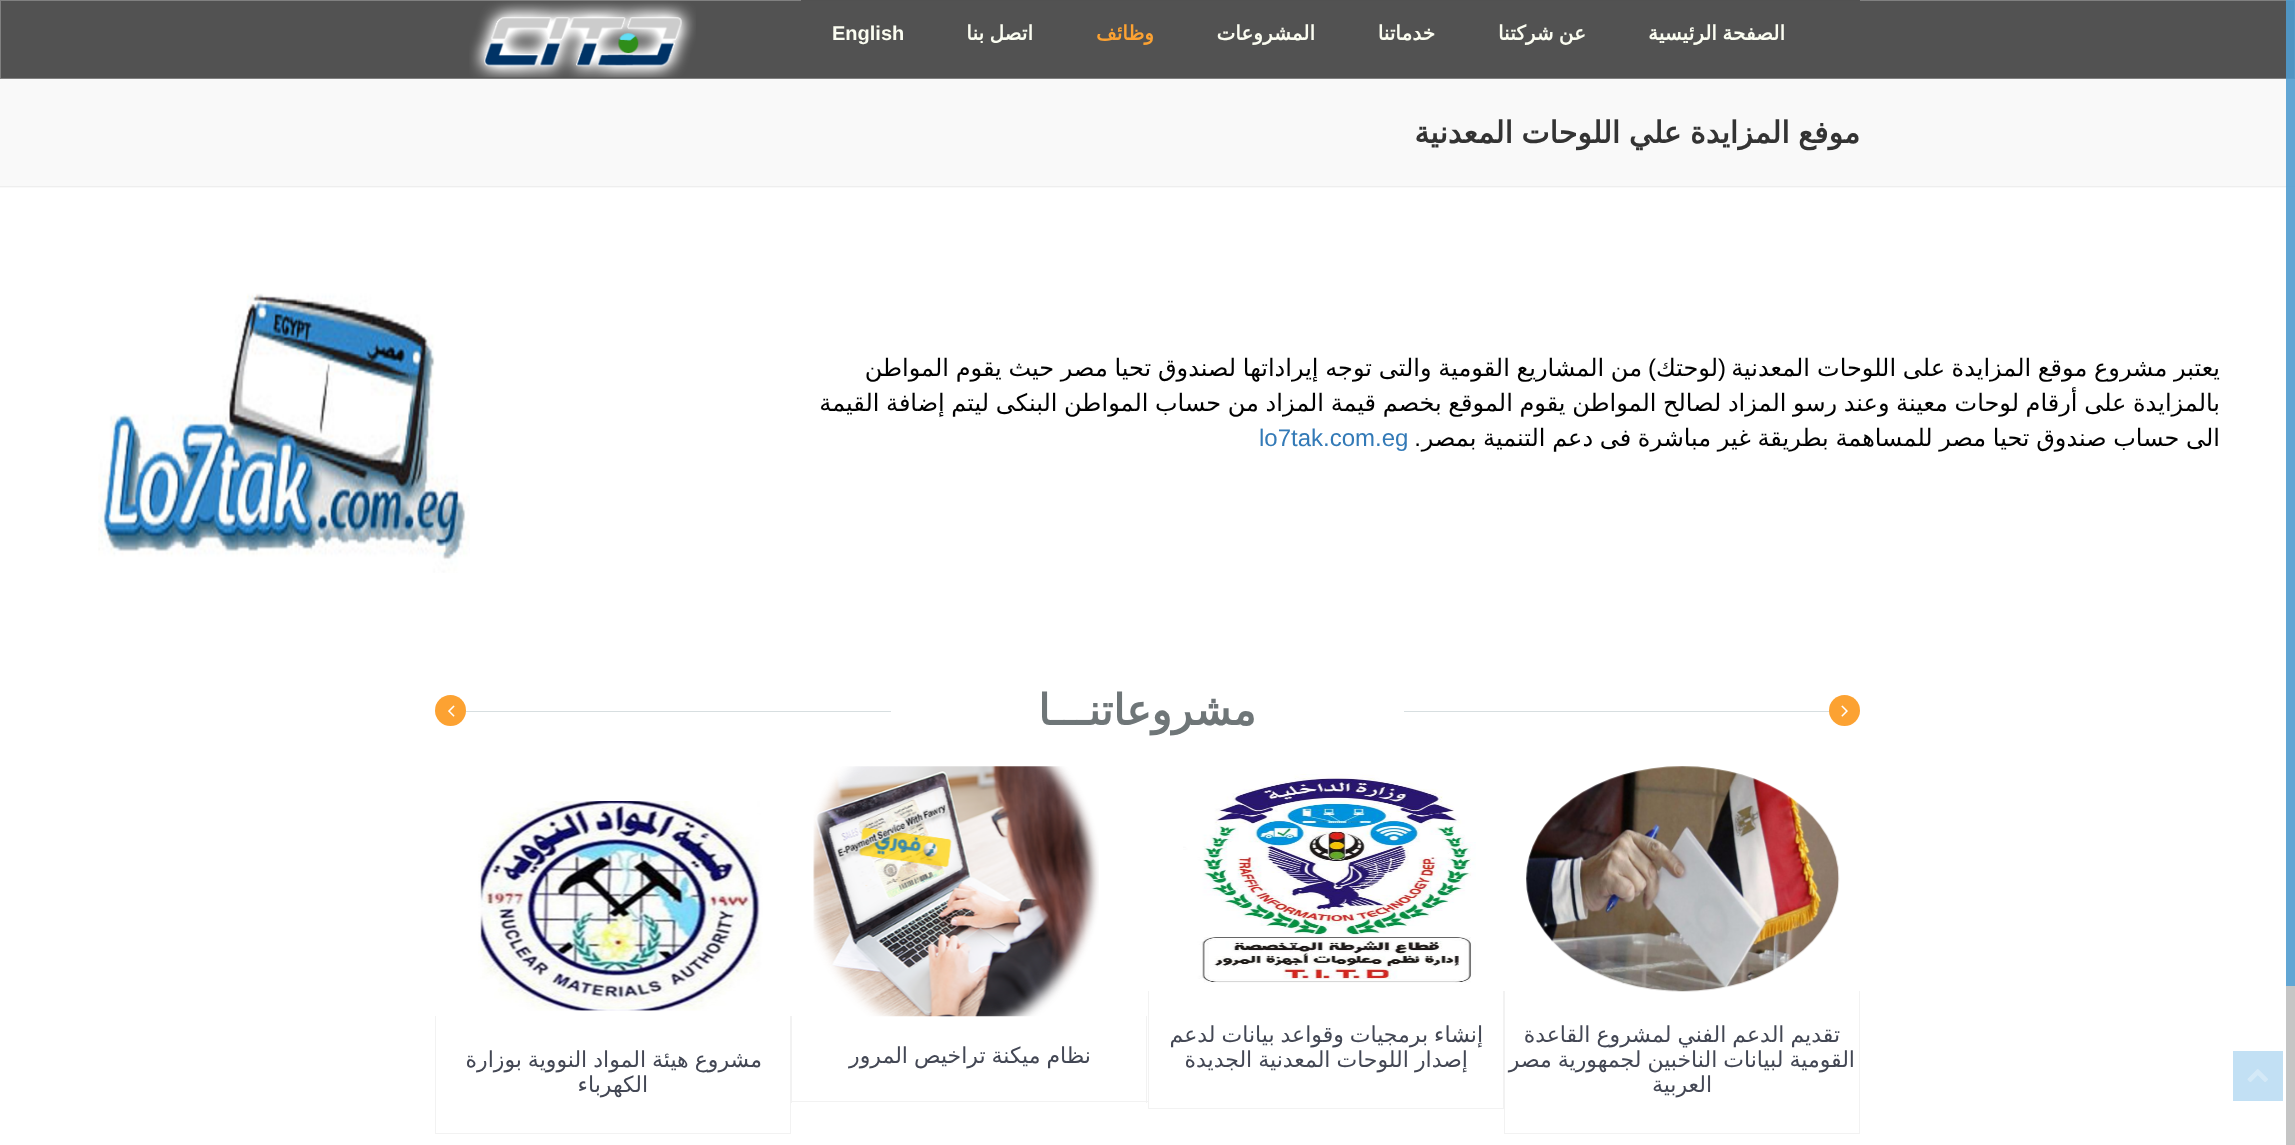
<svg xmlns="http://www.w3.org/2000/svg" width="2295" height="1145">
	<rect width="100%" height="100%" fill="#FFFFFF" />
	<rect x="0.5" y="0.5" width="2294" height="78" fill="#525252" stroke="#808080" />
	<rect x="0" y="79" width="2295" height="109" fill="#F9F9F9" />
	<rect x="0" y="186" width="2295" height="1" fill="#EEEEEE" />
	<rect x="2286" y="0" width="9" height="1145" fill="#AAAAAA" fill-opacity="0.68" />
	<rect x="2286" y="0" width="9" height="986" fill="#3498DB" fill-opacity="0.68" />
	<rect x="801" y="0" width="1059" height="1" fill="#515151" />
	<g font-family="DejaVu Sans" font-size="20" font-weight="700" direction="rtl" fill="#FBFDF1">
		<text x="1785" y="40" word-spacing="-1">الصفحة الرئيسية</text>
		<text x="1586" y="40" word-spacing="-1">عن شركتنا</text>
		<text x="1435" y="40">خدماتنا</text>
		<text x="1315" y="40">المشروعات</text>
	</g>
	<text x="1154" y="40" font-family="DejaVu Sans" font-size="20" font-weight="700" direction="rtl" fill="#FCA232">وظائف</text>
	<text x="1033" y="40" word-spacing="-1" font-family="DejaVu Sans" font-size="20" font-weight="700" direction="rtl" fill="#FBFDF1">اتصل بنا</text>
	<text x="832" y="40" font-family="Liberation Sans" font-size="20" font-weight="700" fill="#FBFDF1">English</text>
	<image x="469" y="1" width="227" height="77" href="assets/img1.png" />
	<text x="1860" y="143" word-spacing="-1" font-family="DejaVu Sans" font-size="30" font-weight="700" direction="rtl" fill="#333333">موفع المزايدة علي اللوحات المعدنية</text>
	<g font-family="DejaVu Sans" font-size="24" direction="rtl" fill="#000000">
		<text x="2220" y="376" word-spacing="-1">يعتبر مشروع موقع المزايدة</text>
		<text x="1945" y="376" word-spacing="-1">على اللوحات</text>
		<text x="1810" y="376">المعدنية</text>
	</g>
	<text x="1726" y="376" font-family="Liberation Sans" font-size="24" direction="rtl" fill="#000000">(</text>
	<g font-family="DejaVu Sans" font-size="24" direction="rtl" fill="#000000">
		<text x="1718" y="376">لوحتك</text>
		<text x="1642" y="376" word-spacing="-0.9">من المشاريع القومية والتى توجه إيراداتها لصندوق تحيا مصر حيث يقوم المواطن</text>
	</g>
	<text x="1656" y="376" font-family="Liberation Sans" font-size="24" direction="rtl" fill="#000000">)</text>
	<g font-family="DejaVu Sans" font-size="24" direction="rtl" fill="#000000">
		<text x="2220" y="411" word-spacing="-1">بالمزايدة على أرقام لوحات معينة وعند رسو المزاد لصالح المواطن يقوم الموقع بخصم قيمة المزاد من حساب المواطن البنكى ليتم إضافة القيمة</text>
		<text x="2220" y="446" word-spacing="-1">الى حساب صندوق تحيا مصر للمساهمة بطريقة غير مباشرة فى دعم التنمية بمصر</text>
	</g>
	<text x="1421" y="446" font-family="Liberation Sans" font-size="24" direction="rtl" fill="#000000">.</text>
	<text x="1259" y="446" font-family="Liberation Sans" font-size="24" fill="#337AB7">lo7tak.com.eg</text>
	<image x="98" y="293" width="372" height="280" href="assets/img2.png" />
	<rect x="2233" y="1051" width="50" height="50" fill="#C2E0F4" />
	<image x="2247" y="1069" width="21" height="13" href="assets/img3.png" />
	<rect x="1404" y="711" width="456" height="1" fill="#D7DEE0" />
	<text x="1256" y="725" font-family="DejaVu Sans" font-size="42.5" font-weight="700" direction="rtl" fill="#6F7678">مشروعاتنـــا</text>
	<rect x="435" y="711" width="456" height="1" fill="#D7DEE0" />
	<circle cx="1844.5" cy="710.5" r="15.5" fill="#FCA232" />
	<image x="1841" y="705" width="7" height="12" href="assets/img4.png" />
	<circle cx="450.5" cy="710.5" r="15.5" fill="#FCA232" />
	<image x="448" y="705" width="7" height="12" href="assets/img5.png" />
	<image x="1526" y="766" width="314" height="226" href="assets/img6.png" />
	<rect x="1859" y="991" width="1" height="143" fill="#F2F2F2" />
	<rect x="1504" y="1133" width="356" height="1" fill="#F2F2F2" />
	<rect x="1504" y="991" width="1" height="143" fill="#F2F2F2" />
	<g font-family="DejaVu Sans" font-size="22" direction="rtl" fill="#434754">
		<text x="1840" y="1042" word-spacing="-1">تقديم الدعم الفني لمشروع القاعدة</text>
		<text x="1855" y="1067" word-spacing="-1">القومية لبيانات الناخبين لجمهورية مصر</text>
		<text x="1712" y="1092">العربية</text>
	</g>
	<image x="1183" y="774" width="293" height="209" href="assets/img7.png" />
	<rect x="1503" y="991" width="1" height="118" fill="#F2F2F2" />
	<rect x="1148" y="1108" width="356" height="1" fill="#F2F2F2" />
	<rect x="1148" y="991" width="1" height="118" fill="#F2F2F2" />
	<g font-family="DejaVu Sans" font-size="22" direction="rtl" fill="#434754">
		<text x="1483" y="1042" word-spacing="-1">إنشاء برمجيات وقواعد بيانات لدعم</text>
		<text x="1468" y="1067" word-spacing="-1">إصدار اللوحات المعدنية الجديدة</text>
	</g>
	<image x="813" y="766" width="286" height="251" href="assets/img8.png" />
	<rect x="1146" y="1016" width="1" height="87" fill="#F2F2F2" />
	<rect x="791" y="1101" width="357" height="1" fill="#F2F2F2" />
	<rect x="791" y="1016" width="1" height="87" fill="#F2F2F2" />
	<text x="1091" y="1063" word-spacing="-1" font-family="DejaVu Sans" font-size="22" direction="rtl" fill="#434754">نظام ميكنة تراخيص المرور</text>
	<image x="478" y="801" width="285" height="210" href="assets/img9.png" />
	<rect x="790" y="1016" width="1" height="118" fill="#F2F2F2" />
	<rect x="435" y="1133" width="356" height="1" fill="#F2F2F2" />
	<rect x="435" y="1016" width="1" height="118" fill="#F2F2F2" />
	<g font-family="DejaVu Sans" font-size="22" direction="rtl" fill="#434754">
		<text x="762" y="1067" word-spacing="-1">مشروع هيئة المواد النووية بوزارة</text>
		<text x="648" y="1092">الكهرباء</text>
	</g>
</svg>
